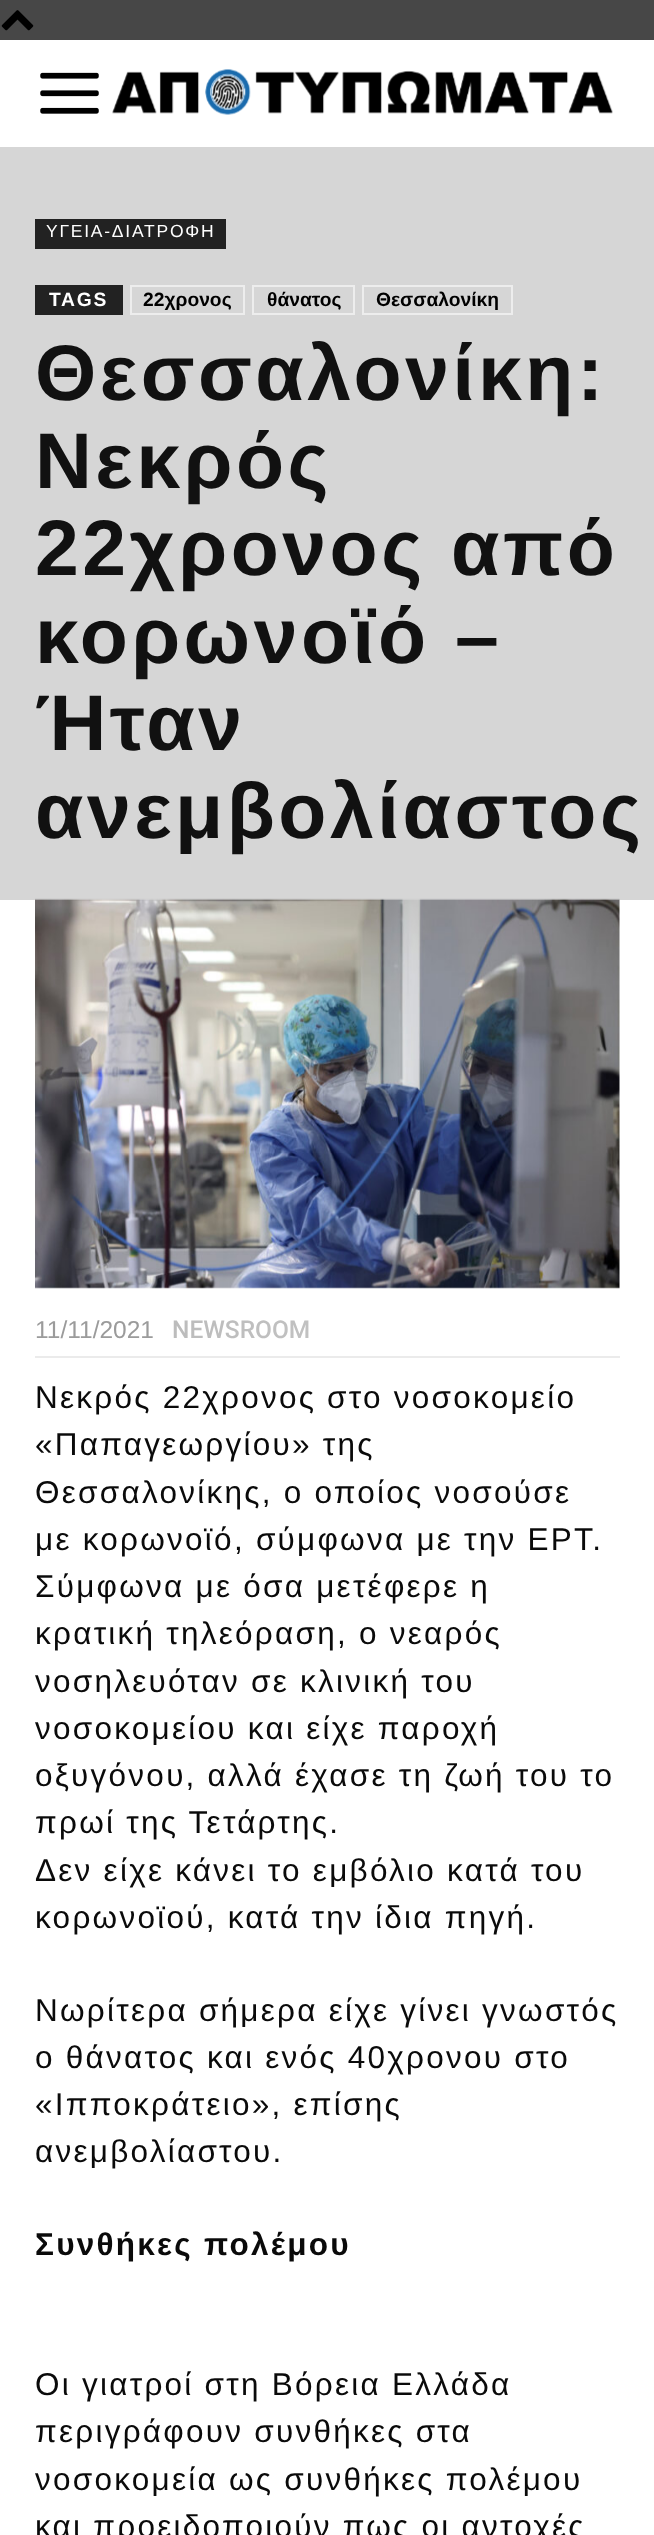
<svg xmlns="http://www.w3.org/2000/svg" width="654" height="2535">
	<defs>
		<linearGradient id="g1" gradientUnits="userSpaceOnUse" x1="310" y1="1329" x2="172" y2="1329"><stop offset="0" stop-color="#C1C1C1" /><stop offset="1" stop-color="#BCBCBC" /></linearGradient>
	</defs>
	<rect width="100%" height="100%" fill="#FFFFFF" />
	<rect x="0" y="0" width="654" height="40" fill="#474747" />
	<image x="1" y="10" width="33" height="21" href="assets/img1.png" />
	<image x="40" y="72" width="59" height="42" href="assets/img2.png" />
	<image x="112" y="69" width="501" height="46" href="assets/img3.png" />
	<rect x="0" y="147" width="654" height="753" fill="#D6D6D6" />
	<rect x="35" y="219" width="191" height="30" fill="#222222" />
	<text x="46" y="237" font-family="Liberation Sans" font-size="17.5" letter-spacing="1.75" fill="#FFFFFF">ΥΓΕΙΑ-ΔΙΑΤΡΟΦΗ</text>
	<rect x="35" y="285" width="88" height="30" fill="#222222" />
	<text x="49" y="306" font-family="Liberation Sans" font-size="19.25" font-weight="700" letter-spacing="1.75" fill="#FFFFFF">TAGS</text>
	<rect x="131" y="286" width="113" height="28" fill="none" stroke="#EDEDED" stroke-width="2" />
	<text x="143" y="306" font-family="Liberation Sans" font-size="19.25" font-weight="700" fill="#000000">22χρονος</text>
	<rect x="253" y="286" width="101" height="28" fill="none" stroke="#EDEDED" stroke-width="2" />
	<text x="267" y="306" font-family="Liberation Sans" font-size="19.25" font-weight="700" fill="#000000">θάνατος</text>
	<rect x="363" y="286" width="149" height="28" fill="none" stroke="#EDEDED" stroke-width="2" />
	<text x="376" y="306" font-family="Liberation Sans" font-size="19.25" font-weight="700" fill="#000000">Θεσσαλονίκη</text>
	<g font-family="Liberation Sans" font-size="78.75" font-weight="700" letter-spacing="3.5" fill="#111111">
		<text x="35" y="400">Θεσσαλονίκη:</text>
		<text x="35" y="488">Νεκρός</text>
		<text x="35" y="575">22χρονος από</text>
		<text x="35" y="663">κορωνοϊό –</text>
		<text x="35" y="750">Ήταν</text>
		<text x="35" y="838">ανεμβολίαστος</text>
	</g>
	<image x="35" y="898" width="585" height="391" href="assets/img4.png" />
	<text x="35" y="1338" font-family="Liberation Sans" font-size="24.5" fill="#9B9B9B">11/11/2021</text>
	<text x="172" y="1338" font-family="Roboto" font-size="24.5" font-weight="500" fill="url(#g1)">NEWSROOM</text>
	<rect x="35" y="1356" width="585" height="2" fill="#EBEBEB" />
	<g font-family="Liberation Sans" font-size="31.5" letter-spacing="2.25" fill="#0A0A0A">
		<text x="35" y="1408">Νεκρός 22χρονος στο νοσοκομείο</text>
		<text x="35" y="1455">«Παπαγεωργίου» της</text>
		<text x="35" y="1503">Θεσσαλονίκης, ο οποίος νοσούσε</text>
		<text x="35" y="1550">με κορωνοϊό, σύμφωνα με την ΕΡΤ.</text>
		<text x="35" y="1597">Σύμφωνα με όσα μετέφερε η</text>
		<text x="35" y="1644">κρατική τηλεόραση, ο νεαρός</text>
		<text x="35" y="1692">νοσηλευόταν σε κλινική του</text>
		<text x="35" y="1739">νοσοκομείου και είχε παροχή</text>
		<text x="35" y="1786">οξυγόνου, αλλά έχασε τη ζωή του το</text>
		<text x="35" y="1833">πρωί της Τετάρτης.</text>
		<text x="35" y="1881">Δεν είχε κάνει το εμβόλιο κατά του</text>
		<text x="35" y="1928">κορωνοϊού, κατά την ίδια πηγή.</text>
		<text x="35" y="2021">Νωρίτερα σήμερα είχε γίνει γνωστός</text>
		<text x="35" y="2068">ο θάνατος και ενός 40χρονου στο</text>
		<text x="35" y="2115">«Ιπποκράτειο», επίσης</text>
		<text x="35" y="2162">ανεμβολίαστου.</text>
	</g>
	<text x="35" y="2255" font-family="Liberation Sans" font-size="31.5" font-weight="700" letter-spacing="2.25" fill="#0A0A0A">Συνθήκες πολέμου</text>
	<g font-family="Liberation Sans" font-size="31.5" letter-spacing="2.25" fill="#0A0A0A">
		<text x="35" y="2395">Οι γιατροί στη Βόρεια Ελλάδα</text>
		<text x="35" y="2442">περιγράφουν συνθήκες στα</text>
		<text x="35" y="2490">νοσοκομεία ως συνθήκες πολέμου</text>
		<text x="35" y="2537">και προειδοποιούν πως οι αντοχές</text>
	</g>
</svg>
